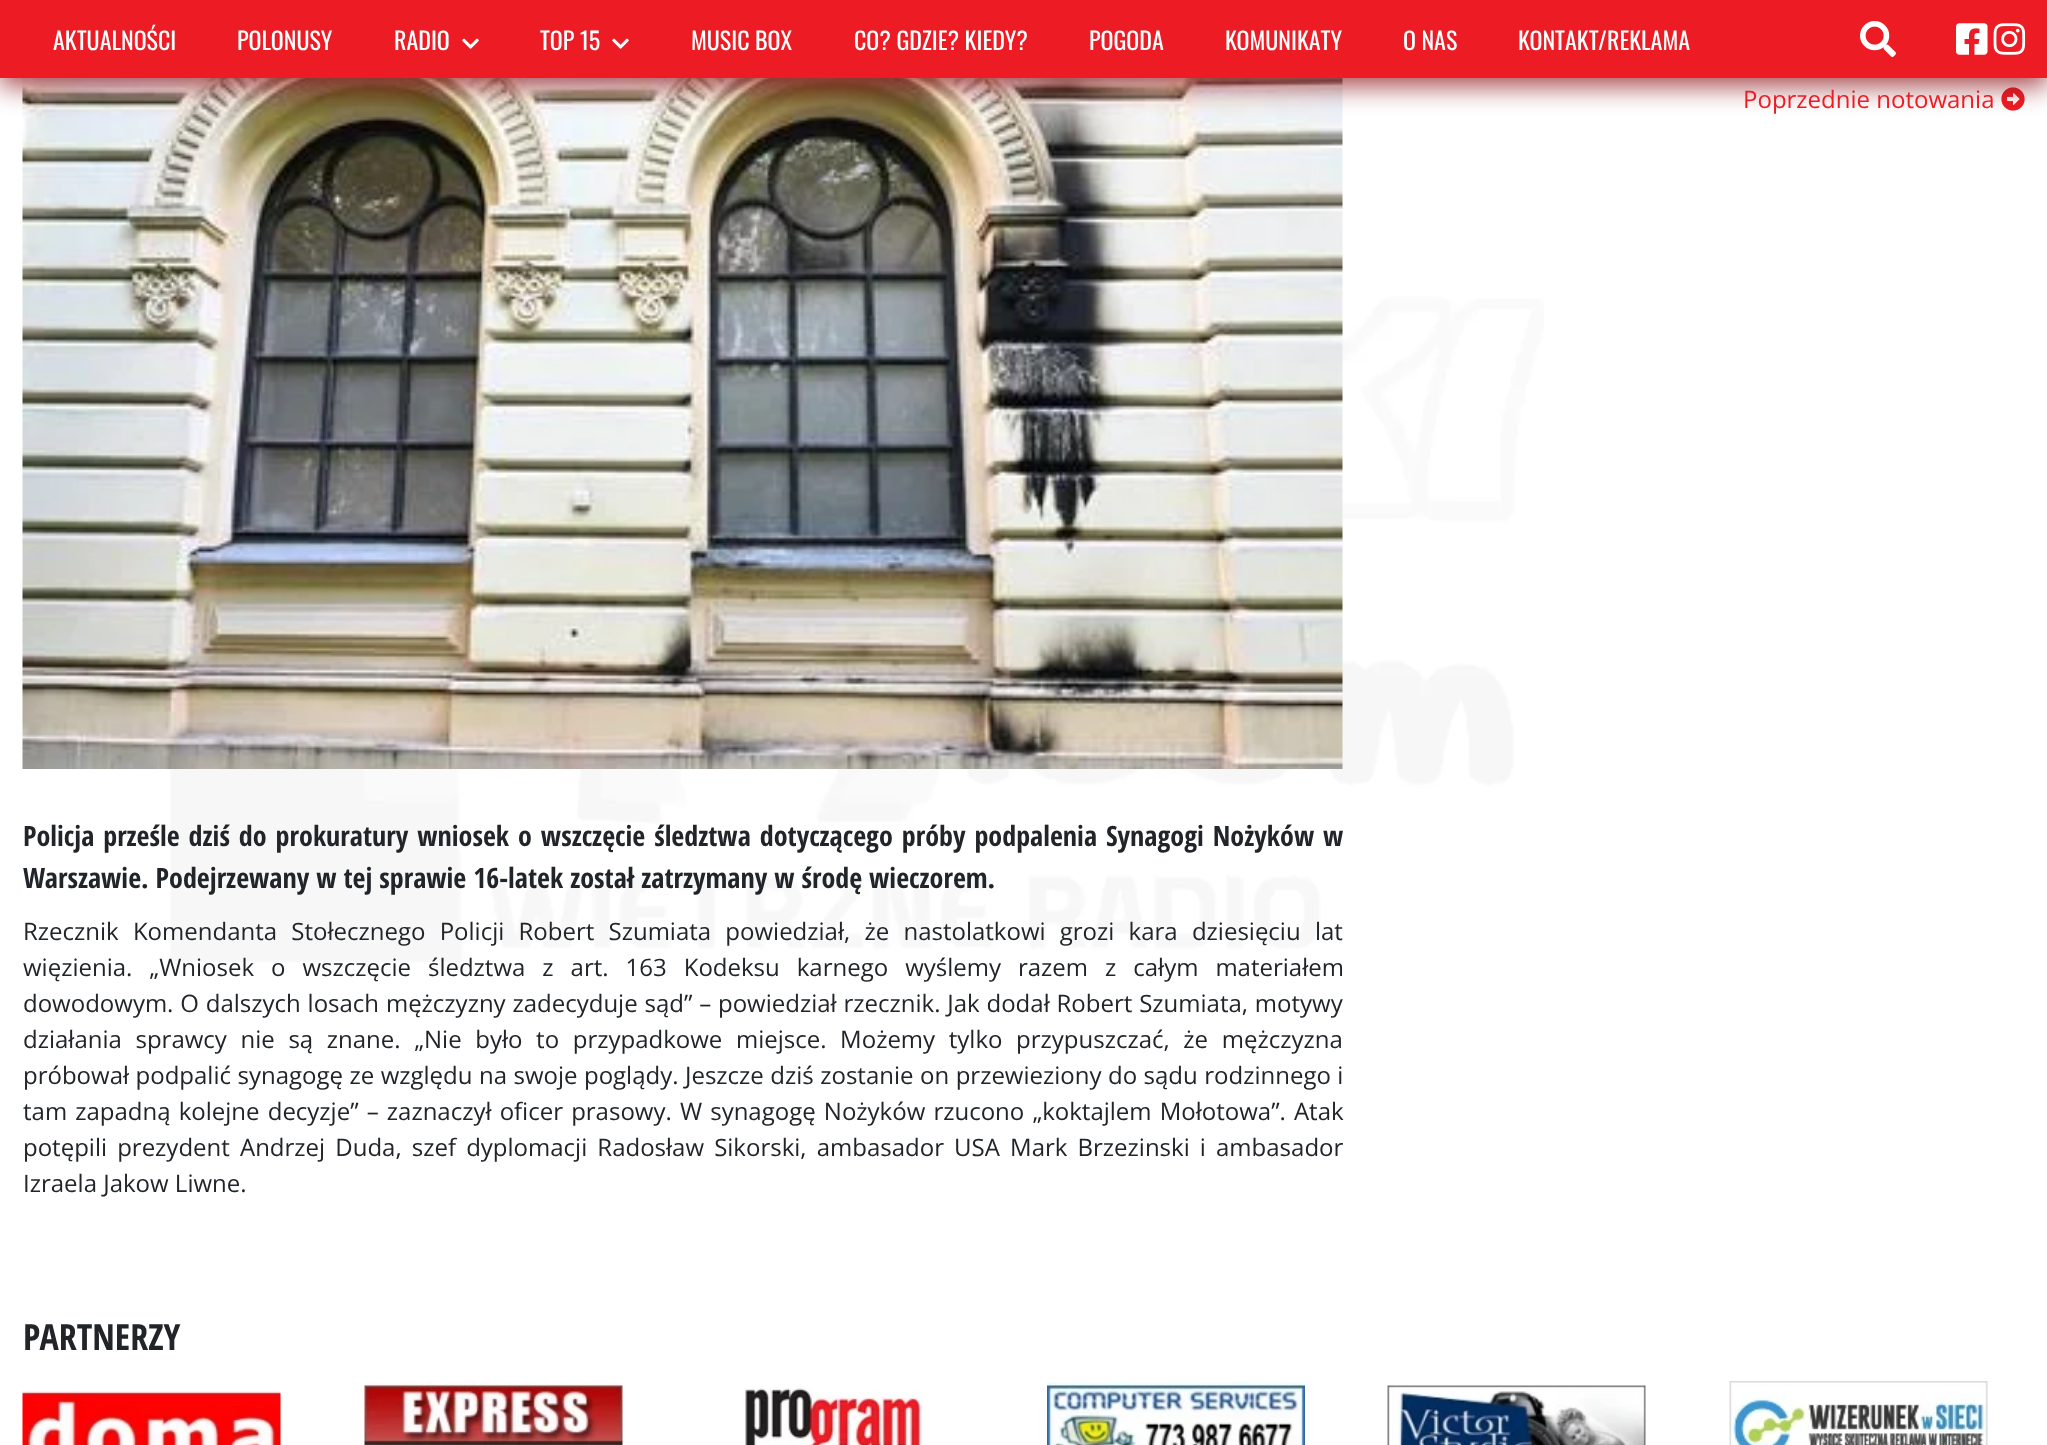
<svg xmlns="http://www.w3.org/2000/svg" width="2047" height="1445">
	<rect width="100%" height="100%" fill="#FFFFFF" />
	<image x="170" y="78" width="1374" height="884" href="assets/img1.png" />
	<image x="2001" y="87" width="24" height="24" href="assets/img6.png" />
	<image x="22" y="78" width="1321" height="691" href="assets/img7.png" />
	<rect x="0" y="8" width="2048" height="78" fill="#8E161B" fill-opacity="0.8" filter="blur(13.5px)" />
	<rect x="0" y="0" width="2047" height="78" fill="#ED1C24" />
	<g font-family="Oswald" font-size="24" fill="#FFFFFF">
		<text x="53" y="50">AKTUALNOŚCI</text>
		<text x="237" y="50">POLONUSY</text>
		<text x="394" y="50">RADIO</text>
	</g>
	<image x="462" y="38" width="17" height="11" href="assets/img2.png" />
	<text x="540" y="50" font-family="Oswald" font-size="24" fill="#FFFFFF">TOP 15</text>
	<image x="612" y="38" width="17" height="11" href="assets/img2.png" />
	<g font-family="Oswald" font-size="24" fill="#FFFFFF">
		<text x="691" y="50">MUSIC BOX</text>
		<text x="854" y="50">CO? GDZIE? KIEDY?</text>
		<text x="1089" y="50">POGODA</text>
		<text x="1225" y="50">KOMUNIKATY</text>
		<text x="1403" y="50">O NAS</text>
		<text x="1518" y="50">KONTAKT/REKLAMA</text>
	</g>
	<image x="1860" y="21" width="36" height="36" href="assets/img3.png" />
	<image x="1956" y="23" width="32" height="32" href="assets/img4.png" />
	<image x="1993" y="23" width="33" height="32" href="assets/img5.png" />
	<text x="1743" y="108" font-family="Open Sans" font-size="24" fill="#ED1C24">Poprzednie notowania</text>
	<g font-family="Open Sans Condensed" font-size="28.1" font-weight="700" fill="#212529">
		<text x="23" y="846" word-spacing="2">Policja prześle dziś do prokuratury wniosek o wszczęcie śledztwa dotyczącego próby podpalenia Synagogi Nożyków w</text>
		<text x="23" y="888">Warszawie. Podejrzewany w tej sprawie 16-latek został zatrzymany w środę wieczorem.</text>
	</g>
	<g font-family="Open Sans" font-size="24" fill="#212529">
		<text x="23" y="940" word-spacing="8">Rzecznik Komendanta Stołecznego Policji Robert Szumiata powiedział, że nastolatkowi grozi kara dziesięciu lat</text>
		<text x="23" y="976" word-spacing="10.75">więzienia. „Wniosek o wszczęcie śledztwa z art. 163 Kodeksu karnego wyślemy razem z całym materiałem</text>
		<text x="23" y="1012" word-spacing="0.6">dowodowym. O dalszych losach mężczyzny zadecyduje sąd” – powiedział rzecznik. Jak dodał Robert Szumiata, motywy</text>
		<text x="23" y="1048" word-spacing="7.4">działania sprawcy nie są znane. „Nie było to przypadkowe miejsce. Możemy tylko przypuszczać, że mężczyzna</text>
		<text x="23" y="1084" word-spacing="0.25">próbował podpalić synagogę ze względu na swoje poglądy. Jeszcze dziś zostanie on przewieziony do sądu rodzinnego i</text>
		<text x="23" y="1120" word-spacing="1.9">tam zapadną kolejne decyzje” – zaznaczył oficer prasowy. W synagogę Nożyków rzucono „koktajlem Mołotowa”. Atak</text>
		<text x="23" y="1156" word-spacing="3.9">potępili prezydent Andrzej Duda, szef dyplomacji Radosław Sikorski, ambasador USA Mark Brzezinski i ambasador</text>
		<text x="23" y="1192">Izraela Jakow Liwne.</text>
	</g>
	<text x="23" y="1350" font-family="Open Sans Condensed" font-size="36" font-weight="700" fill="#212529">PARTNERZY</text>
	<image x="22" y="1391" width="259" height="54" href="assets/img8.png" />
	<image x="364" y="1381" width="259" height="64" href="assets/img9.png" />
	<image x="744" y="1388" width="179" height="57" href="assets/img10.png" />
	<image x="1047" y="1381" width="258" height="64" href="assets/img11.png" />
	<image x="1387" y="1385" width="259" height="60" href="assets/img12.png" />
	<image x="1729" y="1381" width="259" height="64" href="assets/img13.png" />
</svg>
